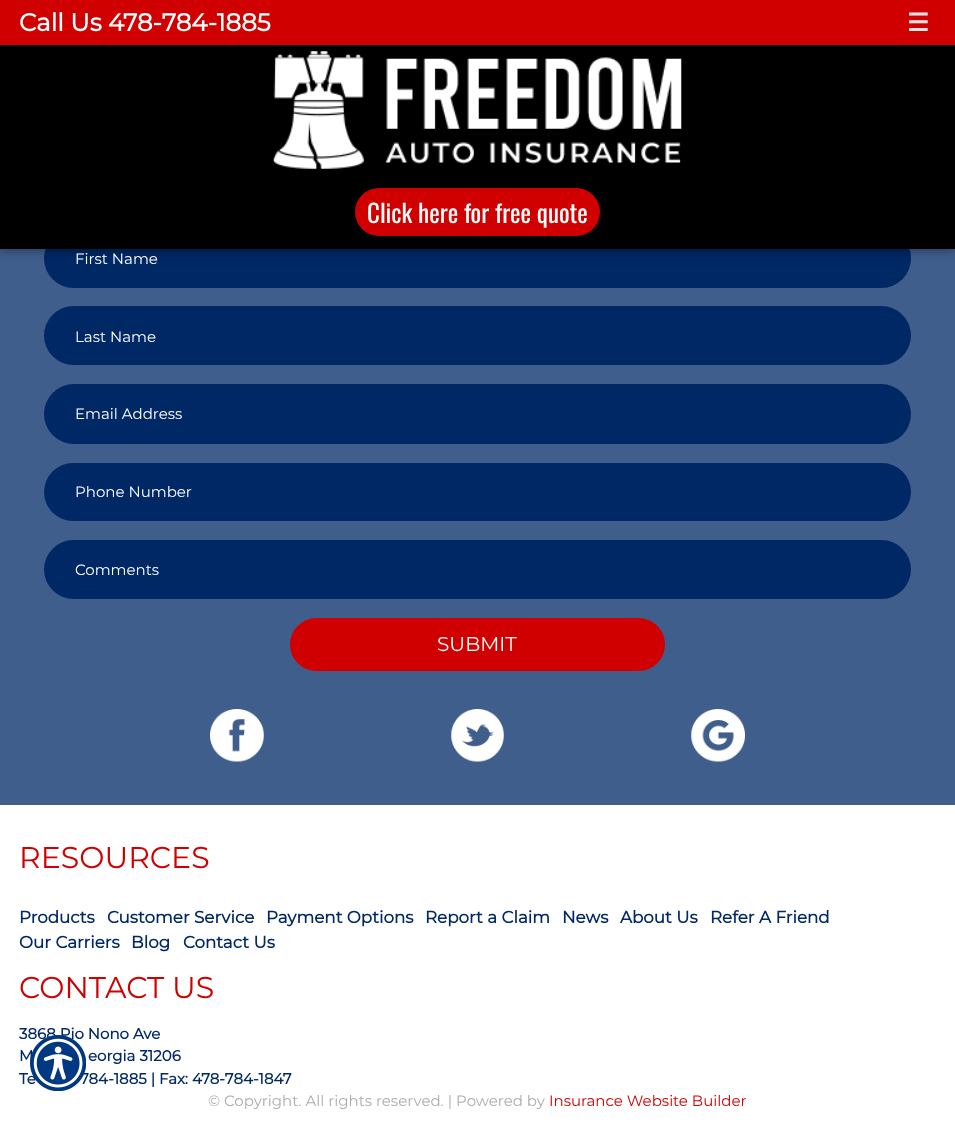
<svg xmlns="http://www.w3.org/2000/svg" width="955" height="1127">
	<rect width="100%" height="100%" fill="#FFFFFF" />
	<rect x="0" y="249" width="955" height="556" fill="#405E8C" />
	<rect x="44" y="229" width="867" height="59" rx="29.5" fill="#002865" />
	<rect x="0" y="0" width="955" height="249" fill="#000000" fill-opacity="0.5" filter="blur(6px)" />
	<rect x="0" y="45" width="955" height="204" fill="#000000" />
	<rect x="0" y="0" width="955" height="45" fill="#D00000" />
	<text x="19" y="31" font-family="Montserrat" font-size="24.5" font-weight="700" fill="#FFFFFF">Call Us 478-784-1885</text>
	<text x="907" y="31" font-family="DejaVu Sans" font-size="24.5" font-weight="700" fill="#E2E2E2">☰</text>
	<image x="273" y="51" width="409" height="118" href="assets/img1.png" />
	<rect x="355" y="188" width="245" height="48" rx="24" fill="#D00000" />
	<text x="367" y="223" font-family="Oswald" font-size="25" fill="#FFFFFF">Click here for free quote</text>
	<text x="75" y="264" font-family="Montserrat" font-size="15" font-weight="100" fill="#FFFFFF">First Name</text>
	<rect x="44" y="306" width="867" height="59" rx="29.5" fill="#002865" />
	<text x="75" y="342" font-family="Montserrat" font-size="15" font-weight="100" fill="#FFFFFF">Last Name</text>
	<rect x="44" y="384" width="867" height="60" rx="30" fill="#002865" />
	<text x="75" y="419" font-family="Montserrat" font-size="15" font-weight="100" fill="#FFFFFF">Email Address</text>
	<rect x="44" y="463" width="867" height="58" rx="29" fill="#002865" />
	<text x="75" y="497" font-family="Montserrat" font-size="15" font-weight="100" fill="#FFFFFF">Phone Number</text>
	<rect x="44" y="540" width="867" height="59" rx="29.5" fill="#002865" />
	<text x="75" y="575" font-family="Montserrat" font-size="15" font-weight="100" fill="#FFFFFF">Comments</text>
	<rect x="290" y="618" width="375" height="53" rx="26.5" fill="#D00000" />
	<text x="437" y="651" font-family="Montserrat" font-size="20" font-weight="100" fill="#FFFFFF">SUBMIT</text>
	<image x="210" y="709" width="54" height="53" href="assets/img2.png" />
	<image x="451" y="709" width="53" height="53" href="assets/img3.png" />
	<image x="691" y="709" width="54" height="53" href="assets/img4.png" />
	<text x="19" y="868" font-family="Montserrat" font-size="30" font-weight="100" fill="#D00000">RESOURCES</text>
	<g font-family="Montserrat" font-size="16.75" font-weight="700" fill="#002865">
		<text x="19" y="923">Products</text>
		<text x="107" y="923">Customer Service</text>
		<text x="266" y="923">Payment Options</text>
		<text x="425" y="923">Report a Claim</text>
		<text x="562" y="923">News</text>
		<text x="620" y="923">About Us</text>
		<text x="710" y="923">Refer A Friend</text>
		<text x="19" y="948">Our Carriers</text>
		<text x="131" y="948">Blog</text>
		<text x="183" y="948">Contact Us</text>
	</g>
	<text x="19" y="998" font-family="Montserrat" font-size="30" font-weight="100" fill="#D00000">CONTACT US</text>
	<g font-family="Montserrat" font-size="15" font-weight="700" fill="#002865">
		<text x="19" y="1039">3868 Pio Nono Ave</text>
		<text x="19" y="1061">M</text>
		<text x="88" y="1061">eorgia 31206</text>
		<text x="19" y="1084">Te</text>
		<text x="80" y="1084">784-1885 | Fax: 478-784-1847</text>
	</g>
	<text x="208" y="1106" font-family="Montserrat" font-size="15" font-weight="100" fill="#ACACAC">© Copyright. All rights reserved. | Powered by</text>
	<text x="549" y="1106" font-family="Montserrat" font-size="15" font-weight="100" fill="#D00000">Insurance Website Builder</text>
	<image x="30" y="1035" width="56" height="56" href="assets/img5.png" />
</svg>
